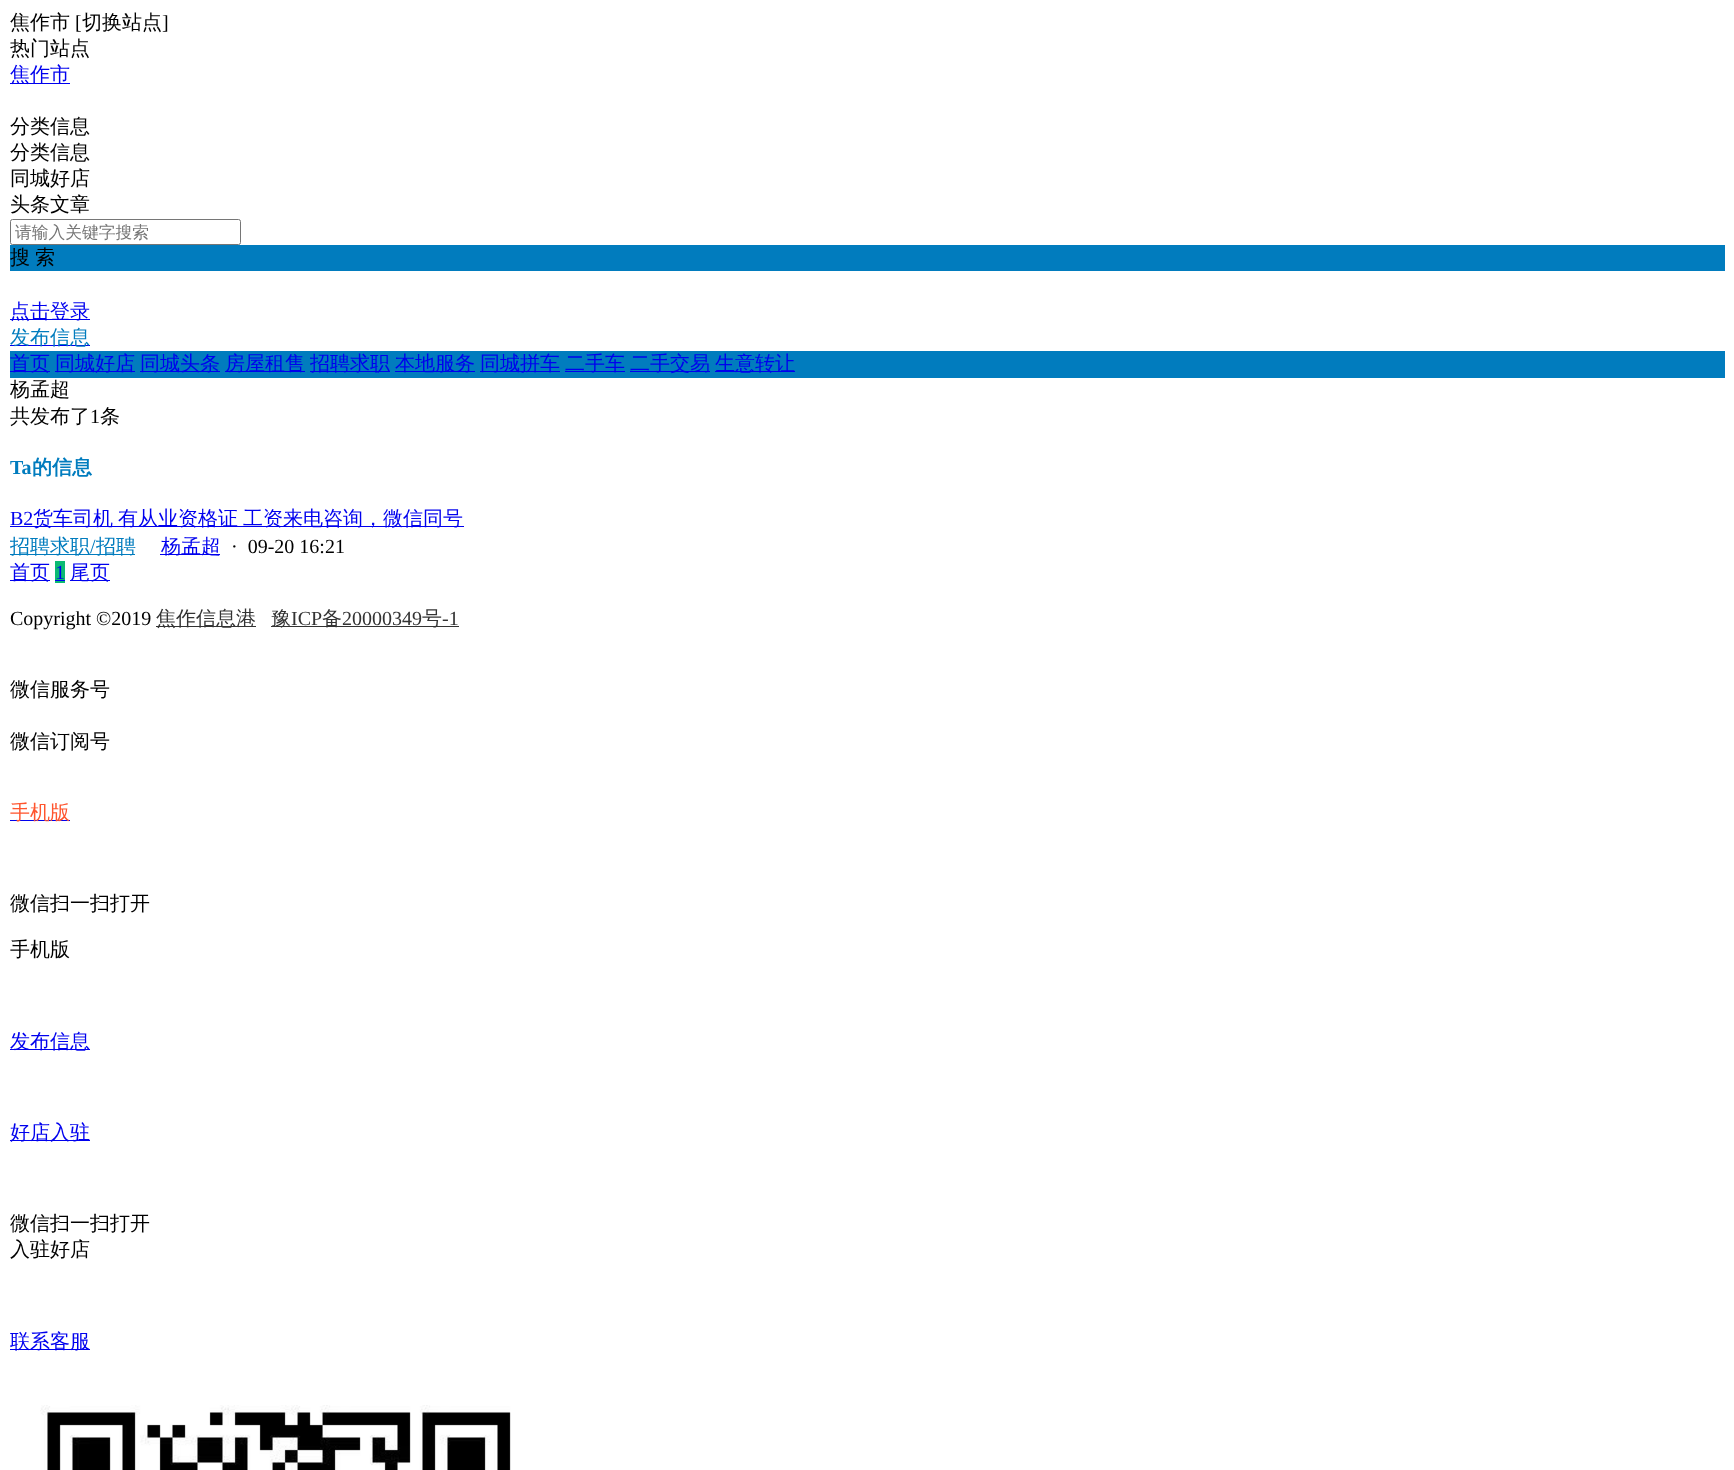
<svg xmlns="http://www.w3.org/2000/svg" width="1734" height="1470">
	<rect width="100%" height="100%" fill="#FFFFFF" />
	<text x="10" y="29" font-family="WenQuanYi Zen Hei" font-size="20" font-weight="500" fill="#000000">焦作市</text>
	<text x="75" y="29" font-family="Liberation Serif" font-size="20" fill="#000000">[</text>
	<text x="82" y="29" font-family="WenQuanYi Zen Hei" font-size="20" font-weight="500" fill="#000000">切换站点</text>
	<text x="162" y="29" font-family="Liberation Serif" font-size="20" fill="#000000">]</text>
	<text x="10" y="55" font-family="WenQuanYi Zen Hei" font-size="20" font-weight="500" fill="#000000">热门站点</text>
	<rect x="10" y="83" width="60" height="1" fill="#0000EE" />
	<text x="10" y="81" font-family="WenQuanYi Zen Hei" font-size="20" font-weight="500" fill="#0000EE">焦作市</text>
	<g font-family="WenQuanYi Zen Hei" font-size="20" font-weight="500" fill="#000000">
		<text x="10" y="133">分类信息</text>
		<text x="10" y="159">分类信息</text>
		<text x="10" y="185">同城好店</text>
		<text x="10" y="211">头条文章</text>
	</g>
	<rect x="10.5" y="219.5" width="230" height="25" rx="2" fill="none" stroke="#767676" />
	<text x="15" y="238" font-family="WenQuanYi Zen Hei" font-size="16.75" font-weight="500" fill="#757575">请输入关键字搜索</text>
	<rect x="10" y="245" width="1715" height="26" fill="#017CBE" />
	<text x="10" y="264" word-spacing="-1" font-family="WenQuanYi Zen Hei" font-size="20" font-weight="500" fill="#000000">搜 索</text>
	<rect x="10" y="319" width="80" height="1" fill="#0000EE" />
	<text x="10" y="318" font-family="WenQuanYi Zen Hei" font-size="20" font-weight="500" fill="#0000EE">点击登录</text>
	<rect x="10" y="345" width="80" height="1" fill="#0000EE" />
	<text x="10" y="344" font-family="WenQuanYi Zen Hei" font-size="20" font-weight="500" fill="#017CBE">发布信息</text>
	<rect x="10" y="351" width="1715" height="27" fill="#017CBE" />
	<rect x="10" y="371" width="40" height="1" fill="#0000EE" />
	<text x="10" y="370" font-family="WenQuanYi Zen Hei" font-size="20" font-weight="500" fill="#0000EE">首页</text>
	<rect x="55" y="371" width="80" height="1" fill="#0000EE" />
	<text x="55" y="370" font-family="WenQuanYi Zen Hei" font-size="20" font-weight="500" fill="#0000EE">同城好店</text>
	<rect x="140" y="371" width="80" height="1" fill="#0000EE" />
	<text x="140" y="370" font-family="WenQuanYi Zen Hei" font-size="20" font-weight="500" fill="#0000EE">同城头条</text>
	<rect x="225" y="371" width="80" height="1" fill="#0000EE" />
	<text x="225" y="370" font-family="WenQuanYi Zen Hei" font-size="20" font-weight="500" fill="#0000EE">房屋租售</text>
	<rect x="310" y="371" width="80" height="1" fill="#0000EE" />
	<text x="310" y="370" font-family="WenQuanYi Zen Hei" font-size="20" font-weight="500" fill="#0000EE">招聘求职</text>
	<rect x="395" y="371" width="80" height="1" fill="#0000EE" />
	<text x="395" y="370" font-family="WenQuanYi Zen Hei" font-size="20" font-weight="500" fill="#0000EE">本地服务</text>
	<rect x="480" y="371" width="80" height="1" fill="#0000EE" />
	<text x="480" y="370" font-family="WenQuanYi Zen Hei" font-size="20" font-weight="500" fill="#0000EE">同城拼车</text>
	<rect x="565" y="371" width="60" height="1" fill="#0000EE" />
	<text x="565" y="370" font-family="WenQuanYi Zen Hei" font-size="20" font-weight="500" fill="#0000EE">二手车</text>
	<rect x="630" y="371" width="80" height="1" fill="#0000EE" />
	<text x="630" y="370" font-family="WenQuanYi Zen Hei" font-size="20" font-weight="500" fill="#0000EE">二手交易</text>
	<rect x="715" y="371" width="80" height="1" fill="#0000EE" />
	<text x="715" y="370" font-family="WenQuanYi Zen Hei" font-size="20" font-weight="500" fill="#0000EE">生意转让</text>
	<g font-family="WenQuanYi Zen Hei" font-size="20" font-weight="500" fill="#000000">
		<text x="10" y="396">杨孟超</text>
		<text x="10" y="423">共发布了</text>
	</g>
	<text x="90" y="423" font-family="Liberation Serif" font-size="20" fill="#000000">1</text>
	<text x="100" y="423" font-family="WenQuanYi Zen Hei" font-size="20" font-weight="500" fill="#000000">条</text>
	<text x="10" y="474" font-family="Liberation Serif" font-size="20" font-weight="700" fill="#017CBE">Ta</text>
	<text x="32" y="474" font-family="WenQuanYi Zen Hei" font-size="20" font-weight="700" fill="#017CBE">的信息</text>
	<text x="10" y="525" font-family="Liberation Serif" font-size="20" fill="#0000EE">B2</text>
	<rect x="10" y="526" width="454" height="1" fill="#0000EE" />
	<text x="33" y="525" word-spacing="-1" font-family="WenQuanYi Zen Hei" font-size="20" font-weight="500" fill="#0000EE">货车司机 有从业资格证 工资来电咨询，微信同号</text>
	<rect x="10" y="554" width="125" height="1" fill="#017CBE" />
	<text x="10" y="553" font-family="WenQuanYi Zen Hei" font-size="20" font-weight="500" fill="#017CBE">招聘求职</text>
	<text x="90" y="553" font-family="Liberation Serif" font-size="20" fill="#017CBE">/</text>
	<text x="96" y="553" font-family="WenQuanYi Zen Hei" font-size="20" font-weight="500" fill="#017CBE">招聘</text>
	<rect x="160" y="554" width="60" height="1" fill="#0000EE" />
	<text x="161" y="553" font-family="WenQuanYi Zen Hei" font-size="20" font-weight="500" fill="#0000EE">杨孟超</text>
	<text x="231" y="553" font-family="Liberation Serif" font-size="20" fill="#000000" xml:space="preserve">·  09-20 16:21</text>
	<rect x="10" y="580" width="40" height="1" fill="#0000EE" />
	<text x="10" y="579" font-family="WenQuanYi Zen Hei" font-size="20" font-weight="500" fill="#0000EE">首页</text>
	<rect x="55" y="561" width="10" height="22" fill="#0BBB73" />
	<text x="55" y="579" font-family="Liberation Serif" font-size="20" fill="#0000EE">1</text>
	<rect x="55" y="580" width="10" height="1" fill="#0000EE" />
	<rect x="70" y="580" width="40" height="1" fill="#0000EE" />
	<text x="70" y="579" font-family="WenQuanYi Zen Hei" font-size="20" font-weight="500" fill="#0000EE">尾页</text>
	<text x="10" y="625" font-family="Liberation Serif" font-size="20" fill="#000000">Copyright ©2019</text>
	<rect x="156" y="626" width="100" height="1" fill="#333333" />
	<text x="156" y="625" font-family="WenQuanYi Zen Hei" font-size="20" font-weight="500" fill="#333333">焦作信息港</text>
	<rect x="271" y="626" width="188" height="1" fill="#333333" />
	<text x="271" y="625" font-family="WenQuanYi Zen Hei" font-size="20" font-weight="500" fill="#333333">豫</text>
	<text x="291" y="625" font-family="Liberation Serif" font-size="20" fill="#333333">ICP</text>
	<text x="322" y="625" font-family="WenQuanYi Zen Hei" font-size="20" font-weight="500" fill="#333333">备</text>
	<text x="342" y="625" font-family="Liberation Serif" font-size="20" fill="#333333">20000349</text>
	<text x="422" y="625" font-family="WenQuanYi Zen Hei" font-size="20" font-weight="500" fill="#333333">号</text>
	<text x="442" y="625" font-family="Liberation Serif" font-size="20" fill="#333333">-1</text>
	<g font-family="WenQuanYi Zen Hei" font-size="20" font-weight="500" fill="#000000">
		<text x="10" y="696">微信服务号</text>
		<text x="10" y="748">微信订阅号</text>
	</g>
	<rect x="10" y="820" width="60" height="1" fill="#0000EE" />
	<text x="10" y="819" font-family="WenQuanYi Zen Hei" font-size="20" font-weight="500" fill="#FF552E">手机版</text>
	<g font-family="WenQuanYi Zen Hei" font-size="20" font-weight="500" fill="#000000">
		<text x="10" y="910">微信扫一扫打开</text>
		<text x="10" y="956">手机版</text>
	</g>
	<rect x="10" y="1049" width="80" height="1" fill="#0000EE" />
	<text x="10" y="1048" font-family="WenQuanYi Zen Hei" font-size="20" font-weight="500" fill="#0000EE">发布信息</text>
	<rect x="10" y="1140" width="80" height="1" fill="#0000EE" />
	<text x="10" y="1139" font-family="WenQuanYi Zen Hei" font-size="20" font-weight="500" fill="#0000EE">好店入驻</text>
	<g font-family="WenQuanYi Zen Hei" font-size="20" font-weight="500" fill="#000000">
		<text x="10" y="1230">微信扫一扫打开</text>
		<text x="10" y="1256">入驻好店</text>
	</g>
	<rect x="10" y="1349" width="80" height="1" fill="#0000EE" />
	<text x="10" y="1348" font-family="WenQuanYi Zen Hei" font-size="20" font-weight="500" fill="#0000EE">联系客服</text>
	<image x="40" y="1405" width="471" height="65" href="assets/img1.png" />
</svg>
